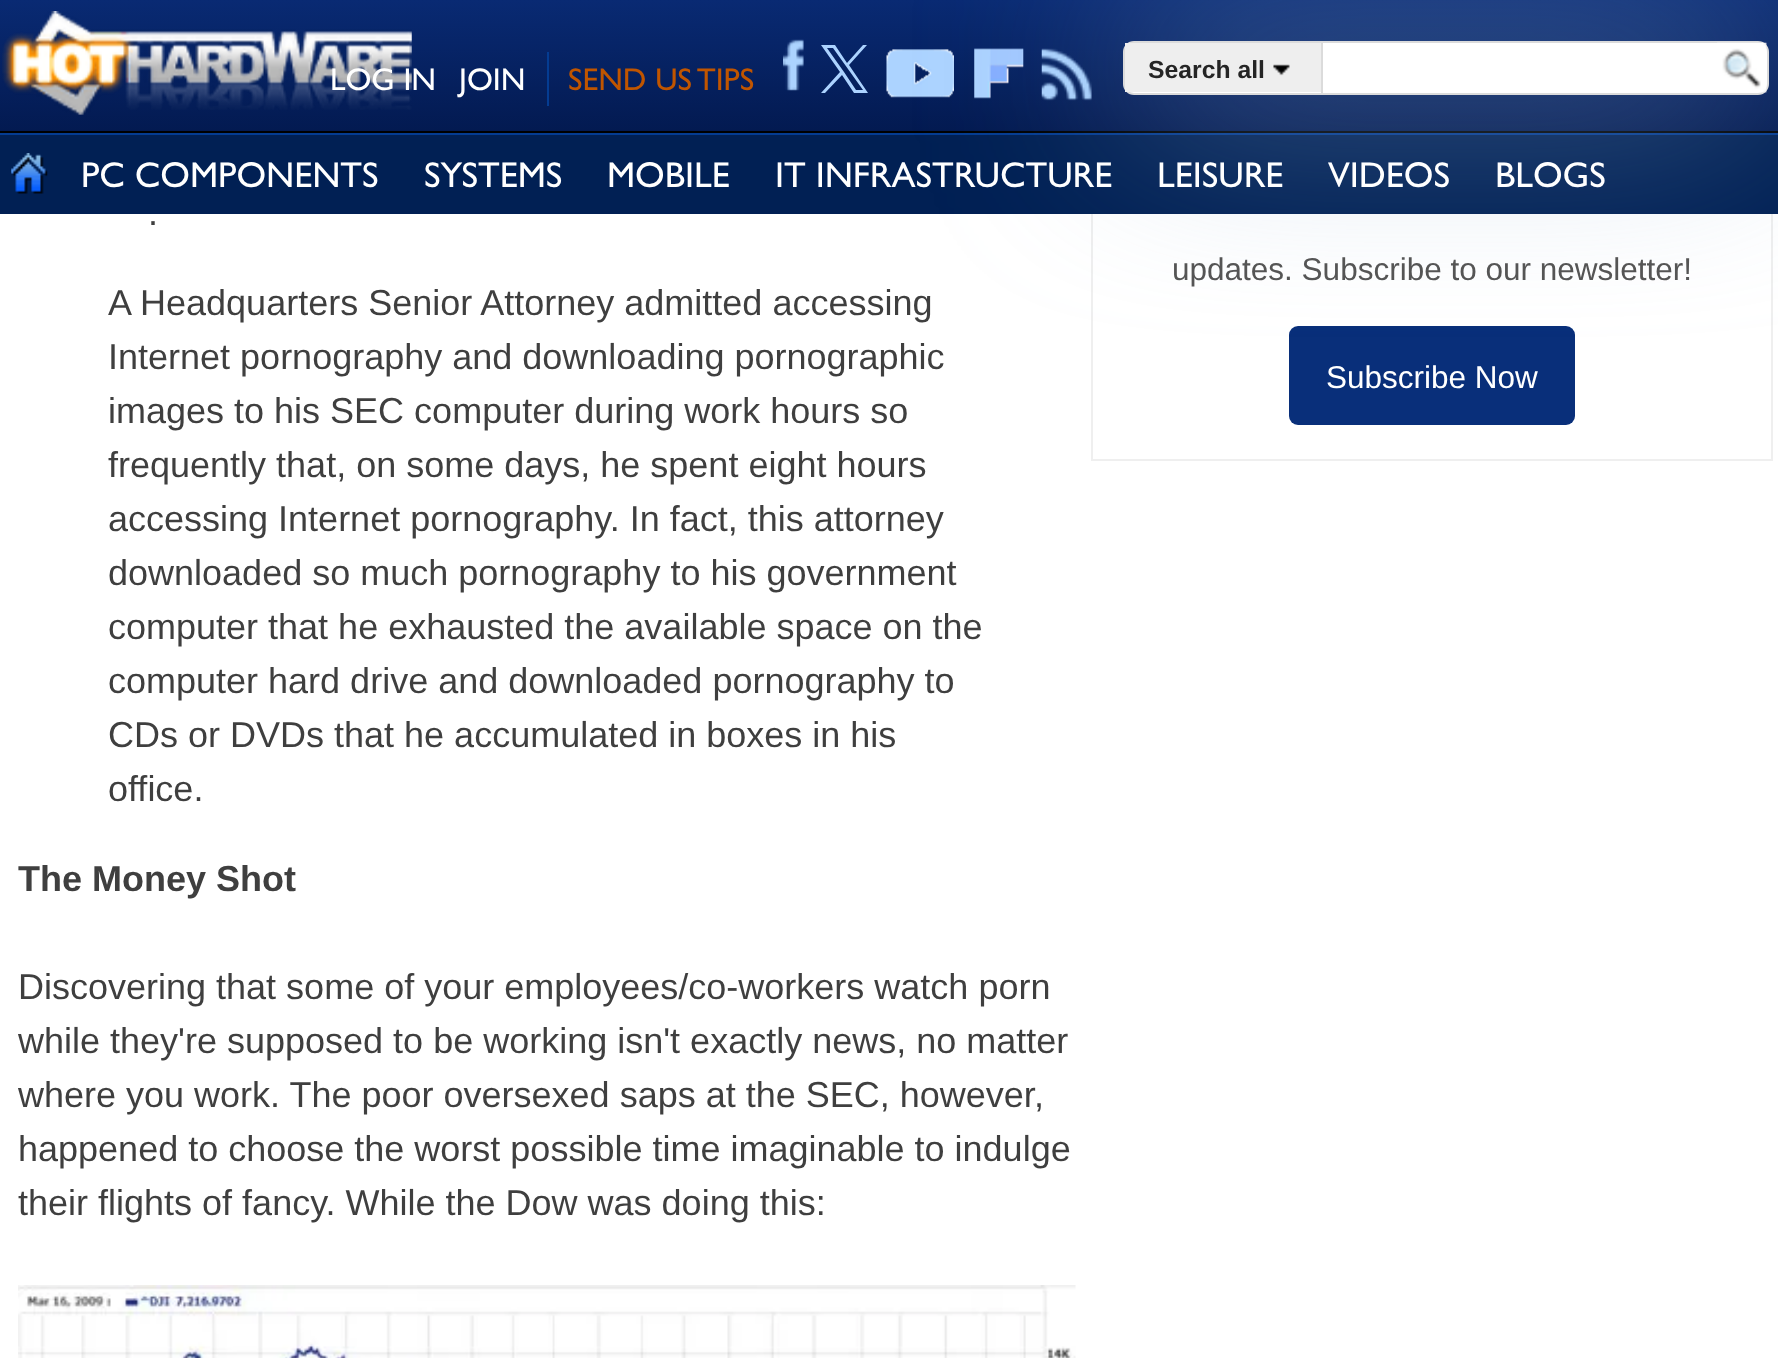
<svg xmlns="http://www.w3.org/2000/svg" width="1778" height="1358">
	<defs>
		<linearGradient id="g1" gradientUnits="userSpaceOnUse" x1="890" y1="0" x2="890" y2="131"><stop offset="0" stop-color="#092A73" /><stop offset="1" stop-color="#031A51" /></linearGradient>
	</defs>
	<rect width="100%" height="100%" fill="#FFFFFF" />
	<rect x="1092" y="37" width="680" height="423" fill="none" stroke="#EFEFEF" stroke-width="2" />
	<rect x="0" y="0" width="1778" height="131" fill="url(#g1)" />
	<rect x="0" y="131" width="1778" height="2" fill="#000000" />
	<image x="2" y="11" width="410" height="104" href="assets/img1.png" />
	<text x="330" y="90" font-family="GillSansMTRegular" font-size="31.5" fill="#FFFFFF">LOG IN</text>
	<rect x="547" y="52" width="2" height="54" fill="#043C92" />
	<text x="459" y="90" font-family="GillSansMTRegular" font-size="31.5" fill="#FFFFFF">JOIN</text>
	<text x="568" y="90" font-family="GillSansMTRegular" font-size="31.5" fill="#C05500">SEND US TIPS</text>
	<image x="783" y="39" width="21" height="52" href="assets/img2.png" />
	<path d="M849 65L867 45H863L847 63L835 45H821L840 72L821 93H825L842 75L854 93H868ZM844 72L827 48H833L863 90H856Z" fill="#ACD3FF" />
	<image x="886" y="49" width="68" height="49" href="assets/img3.png" />
	<image x="974" y="48" width="50" height="51" href="assets/img4.png" />
	<image x="1041" y="48" width="51" height="53" href="assets/img5.png" />
	<rect x="0" y="135" width="1778" height="79" fill="#012054" />
	<rect x="0" y="133" width="1778" height="2" fill="#043C92" />
	<rect x="1289" y="326" width="286" height="99" rx="9" fill="#092F7A" />
	<rect x="1123" y="41" width="646" height="54" rx="11" fill="#8BACD1" filter="blur(101px)" />
	<rect x="1124" y="42" width="644" height="52" rx="10" fill="#FFFFFF" stroke="#DBDBDB" stroke-width="2" />
	<rect x="1125" y="43" width="196" height="49" fill="#EEEEEE" />
	<rect x="1321" y="43" width="2" height="52" fill="#DBDBDB" />
	<text x="1148" y="78" font-family="Liberation Sans" font-size="24.75" font-weight="700" fill="#252525">Search all</text>
	<image x="1273" y="64" width="17" height="12" href="assets/img6.png" />
	<image x="1717" y="42" width="50" height="51" href="assets/img7.png" />
	<image x="11" y="153" width="37" height="41" href="assets/img8.png" />
	<g font-family="GillSansMTRegular" font-size="36" fill="#FFFFFF">
		<text x="81" y="187">PC COMPONENTS</text>
		<text x="424" y="187">SYSTEMS</text>
		<text x="607" y="187">MOBILE</text>
		<text x="775" y="187">IT INFRASTRUCTURE</text>
		<text x="1157" y="187">LEISURE</text>
		<text x="1328" y="187">VIDEOS</text>
		<text x="1495" y="187">BLOGS</text>
	</g>
	<g font-family="Liberation Sans" font-size="36" fill="#3F3F3F">
		<text x="148" y="225">.</text>
		<text x="108" y="315">A Headquarters Senior Attorney admitted accessing</text>
		<text x="108" y="369">Internet pornography and downloading pornographic</text>
		<text x="108" y="423">images to his SEC computer during work hours so</text>
		<text x="108" y="477">frequently that, on some days, he spent eight hours</text>
		<text x="108" y="531">accessing Internet pornography. In fact, this attorney</text>
		<text x="108" y="585">downloaded so much pornography to his government</text>
		<text x="108" y="639">computer that he exhausted the available space on the</text>
		<text x="108" y="693">computer hard drive and downloaded pornography to</text>
		<text x="108" y="747">CDs or DVDs that he accumulated in boxes in his</text>
		<text x="108" y="801">office.</text>
	</g>
	<text x="18" y="891" font-family="Liberation Sans" font-size="36" font-weight="700" fill="#3F3F3F">The Money Shot</text>
	<g font-family="Liberation Sans" font-size="36" fill="#3F3F3F">
		<text x="18" y="999">Discovering that some of your employees/co-workers watch porn</text>
		<text x="18" y="1053">while they're supposed to be working isn't exactly news, no matter</text>
		<text x="18" y="1107">where you work. The poor oversexed saps at the SEC, however,</text>
		<text x="18" y="1161">happened to choose the worst possible time imaginable to indulge</text>
		<text x="18" y="1215">their flights of fancy. While the Dow was doing this:</text>
	</g>
	<image x="18" y="1285" width="1058" height="73" href="assets/img9.png" />
	<text x="1172" y="280" font-family="Liberation Sans" font-size="31.5" fill="#555555">updates. Subscribe to our newsletter!</text>
	<text x="1326" y="388" font-family="Liberation Sans" font-size="31.5" fill="#FFFFFF">Subscribe Now</text>
</svg>
